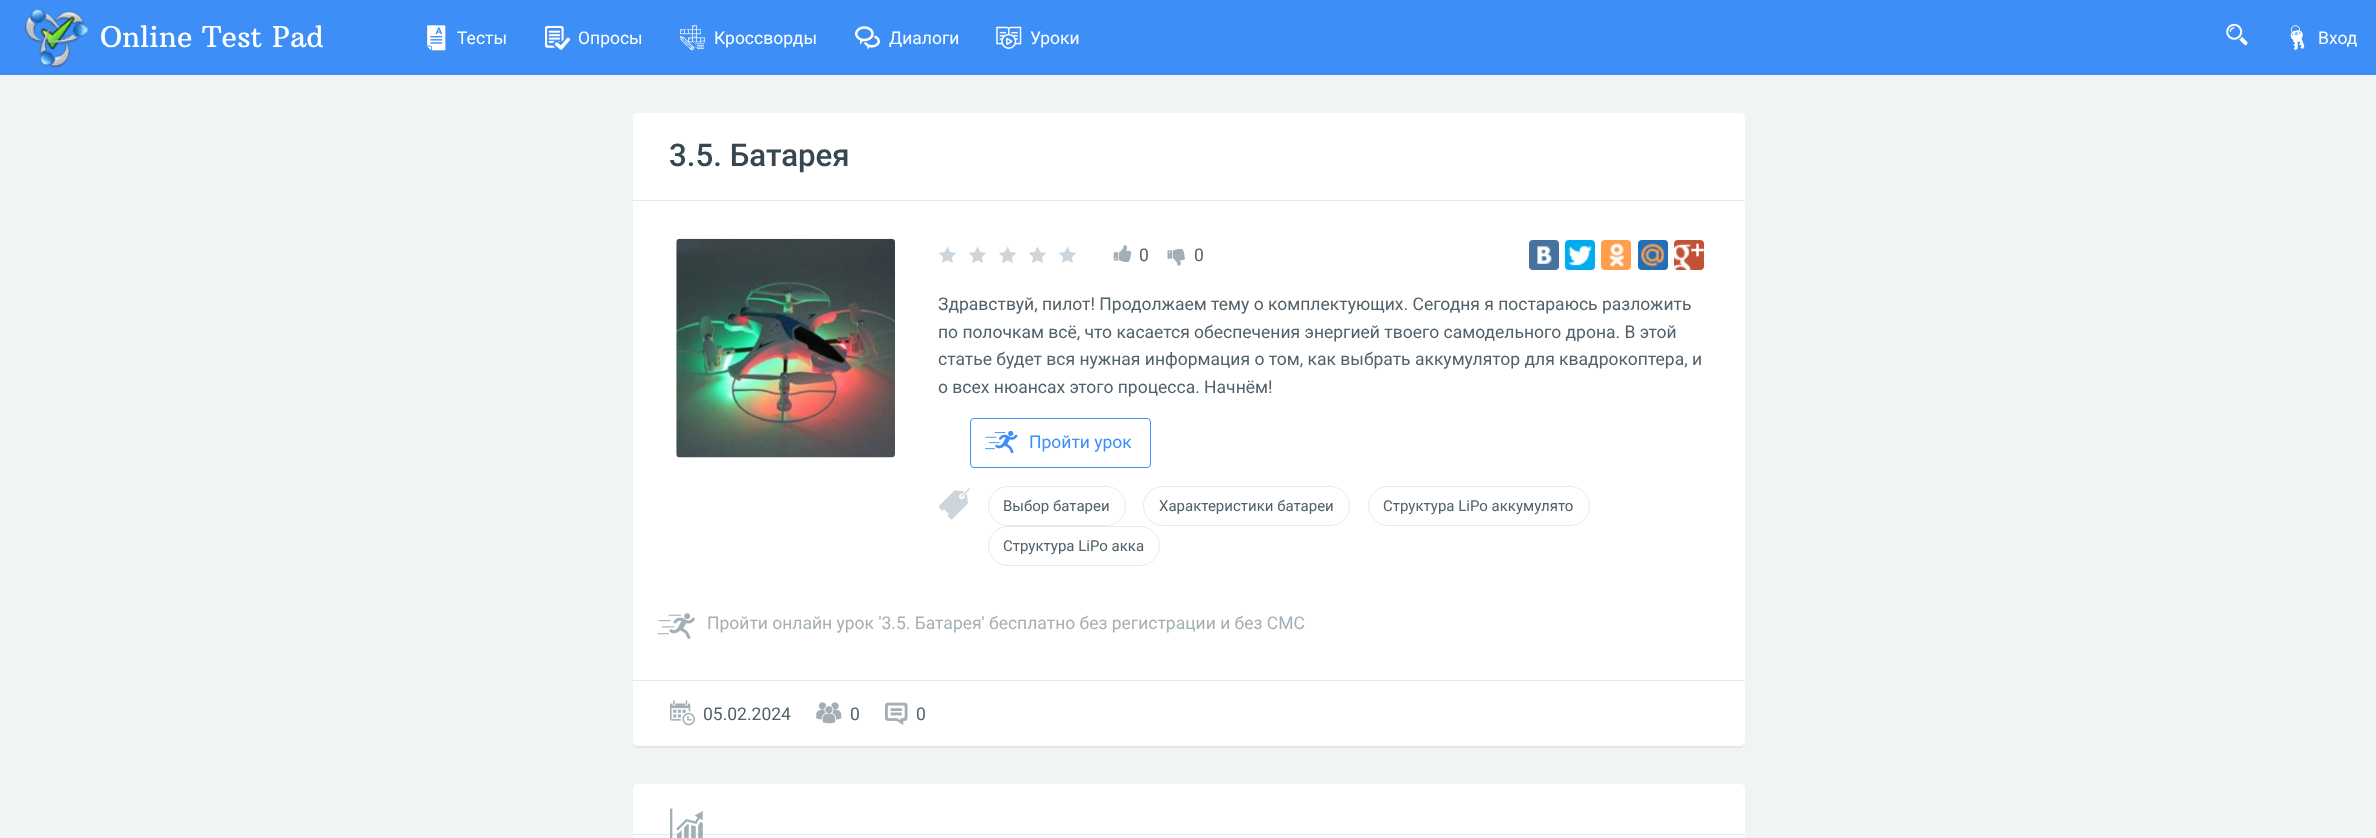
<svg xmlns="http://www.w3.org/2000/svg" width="2376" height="838">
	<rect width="100%" height="100%" fill="#3E8EF7" />
	<image x="25" y="8" width="63" height="60" href="assets/img1.png" />
	<text x="100" y="47" font-family="Arbutus Slab" font-size="28.75" fill="#FFFFFF">Online Test Pad</text>
	<image x="427" y="25" width="19" height="26" href="assets/img2.png" />
	<text x="457" y="44" font-family="Roboto" font-size="17.5" fill="#FFFFFF">Тесты</text>
	<image x="545" y="25" width="25" height="25" href="assets/img3.png" />
	<text x="578" y="44" font-family="Roboto" font-size="17.5" fill="#FFFFFF">Опросы</text>
	<image x="680" y="25" width="25" height="26" href="assets/img4.png" />
	<text x="714" y="44" font-family="Roboto" font-size="17.5" fill="#FFFFFF">Кроссворды</text>
	<image x="855" y="26" width="25" height="24" href="assets/img5.png" />
	<text x="889" y="44" font-family="Roboto" font-size="17.5" fill="#FFFFFF">Диалоги</text>
	<image x="996" y="26" width="26" height="23" href="assets/img6.png" />
	<text x="1030" y="44" font-family="Roboto" font-size="17.5" fill="#FFFFFF">Уроки</text>
	<image x="2226" y="23" width="22" height="23" href="assets/img7.png" />
	<image x="2290" y="25" width="15" height="26" href="assets/img8.png" />
	<text x="2318" y="44" font-family="Roboto" font-size="17.5" fill="#FFFFFF">Вход</text>
	<rect x="0" y="75" width="2376" height="763" fill="#F1F4F5" />
	<rect x="633" y="114" width="1112" height="634" rx="5" fill="#000000" fill-opacity="0.05" filter="blur(0.5px)" />
	<rect x="633" y="113" width="1112" height="633" rx="5" fill="#FFFFFF" />
	<rect x="633" y="200" width="1112" height="1" fill="#E4EAEC" />
	<text x="669" y="166" font-family="Roboto" font-size="31.25" font-weight="500" fill="#37474F">3.5. Батарея</text>
	<image x="676" y="238" width="219" height="220" href="assets/img9.png" />
	<image x="939" y="246" width="17" height="17" href="assets/img10.png" />
	<image x="969" y="246" width="17" height="17" href="assets/img10.png" />
	<image x="999" y="246" width="17" height="17" href="assets/img10.png" />
	<image x="1029" y="246" width="17" height="17" href="assets/img10.png" />
	<image x="1059" y="246" width="17" height="17" href="assets/img10.png" />
	<image x="1113" y="245" width="19" height="17" href="assets/img11.png" />
	<text x="1139" y="261" font-family="Roboto" font-size="17.5" fill="#526069">0</text>
	<image x="1167" y="248" width="18" height="18" href="assets/img12.png" />
	<text x="1194" y="261" font-family="Roboto" font-size="17.5" fill="#526069">0</text>
	<rect x="1529" y="240" width="30" height="30" rx="4" fill="#48729E" />
	<image x="1537" y="246" width="15" height="18" href="assets/img13.png" />
	<rect x="1565" y="240" width="30" height="30" rx="4" fill="#00ACED" />
	<image x="1568" y="246" width="24" height="20" href="assets/img14.png" />
	<rect x="1601" y="240" width="30" height="30" rx="4" fill="#FF9F4D" />
	<image x="1609" y="243" width="15" height="24" href="assets/img15.png" />
	<rect x="1638" y="240" width="30" height="30" rx="4" fill="#226EB7" />
	<image x="1641" y="243" width="23" height="24" href="assets/img16.png" />
	<rect x="1674" y="240" width="30" height="30" rx="4" fill="#C25234" />
	<image x="1674" y="243" width="30" height="27" href="assets/img17.png" />
	<g font-family="Roboto" font-size="17.5" fill="#526069">
		<text x="938" y="310">Здравствуй, пилот! Продолжаем тему о комплектующих. Сегодня я постараюсь разложить</text>
		<text x="938" y="338">по полочкам всё, что касается обеспечения энергией твоего самодельного дрона. В этой</text>
		<text x="938" y="365">статье будет вся нужная информация о том, как выбрать аккумулятор для квадрокоптера, и</text>
		<text x="938" y="393">о всех нюансах этого процесса. Начнём!</text>
	</g>
	<rect x="970.5" y="418.5" width="180" height="49" rx="3.5" fill="none" stroke="#3E8EF7" />
	<image x="985" y="430" width="33" height="24" href="assets/img18.png" />
	<text x="1029" y="448" font-family="Roboto" font-size="17.5" fill="#3E8EF7">Пройти урок</text>
	<image x="938" y="488" width="32" height="32" href="assets/img19.png" />
	<rect x="988.5" y="486.5" width="137" height="39" rx="19.5" fill="none" stroke="#E4EAEC" />
	<text x="1003" y="511" font-family="Roboto" font-size="15" fill="#526069">Выбор батареи</text>
	<rect x="1143.5" y="486.5" width="206" height="39" rx="19.5" fill="none" stroke="#E4EAEC" />
	<text x="1159" y="511" font-family="Roboto" font-size="15" fill="#526069">Характеристики батареи</text>
	<rect x="1368.5" y="486.5" width="221" height="39" rx="19.5" fill="none" stroke="#E4EAEC" />
	<text x="1383" y="511" font-family="Roboto" font-size="15" fill="#526069">Структура LiPo аккумулято</text>
	<rect x="988.5" y="526.5" width="171" height="39" rx="19.5" fill="none" stroke="#E4EAEC" />
	<text x="1003" y="551" font-family="Roboto" font-size="15" fill="#526069">Структура LiPo акка</text>
	<image x="657" y="613" width="38" height="26" href="assets/img20.png" />
	<text x="707" y="629" font-family="Roboto" font-size="17.5" fill="#A3AFB7">Пройти онлайн урок '3.5. Батарея' бесплатно без регистрации и без СМС</text>
	<rect x="633" y="680" width="1112" height="1" fill="#E4EAEC" />
	<image x="670" y="700" width="25" height="26" href="assets/img21.png" />
	<text x="703" y="720" font-family="Roboto" font-size="17.5" fill="#526069">05.02.2024</text>
	<image x="816" y="702" width="26" height="22" href="assets/img22.png" />
	<text x="850" y="720" font-family="Roboto" font-size="17.5" fill="#526069">0</text>
	<image x="885" y="702" width="23" height="23" href="assets/img23.png" />
	<text x="916" y="720" font-family="Roboto" font-size="17.5" fill="#526069">0</text>
	<rect x="633" y="784" width="1112" height="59" rx="5" fill="#FFFFFF" />
	<rect x="633" y="834" width="1112" height="1" fill="#E4EAEC" />
	<image x="670" y="808" width="33" height="30" href="assets/img24.png" />
</svg>
